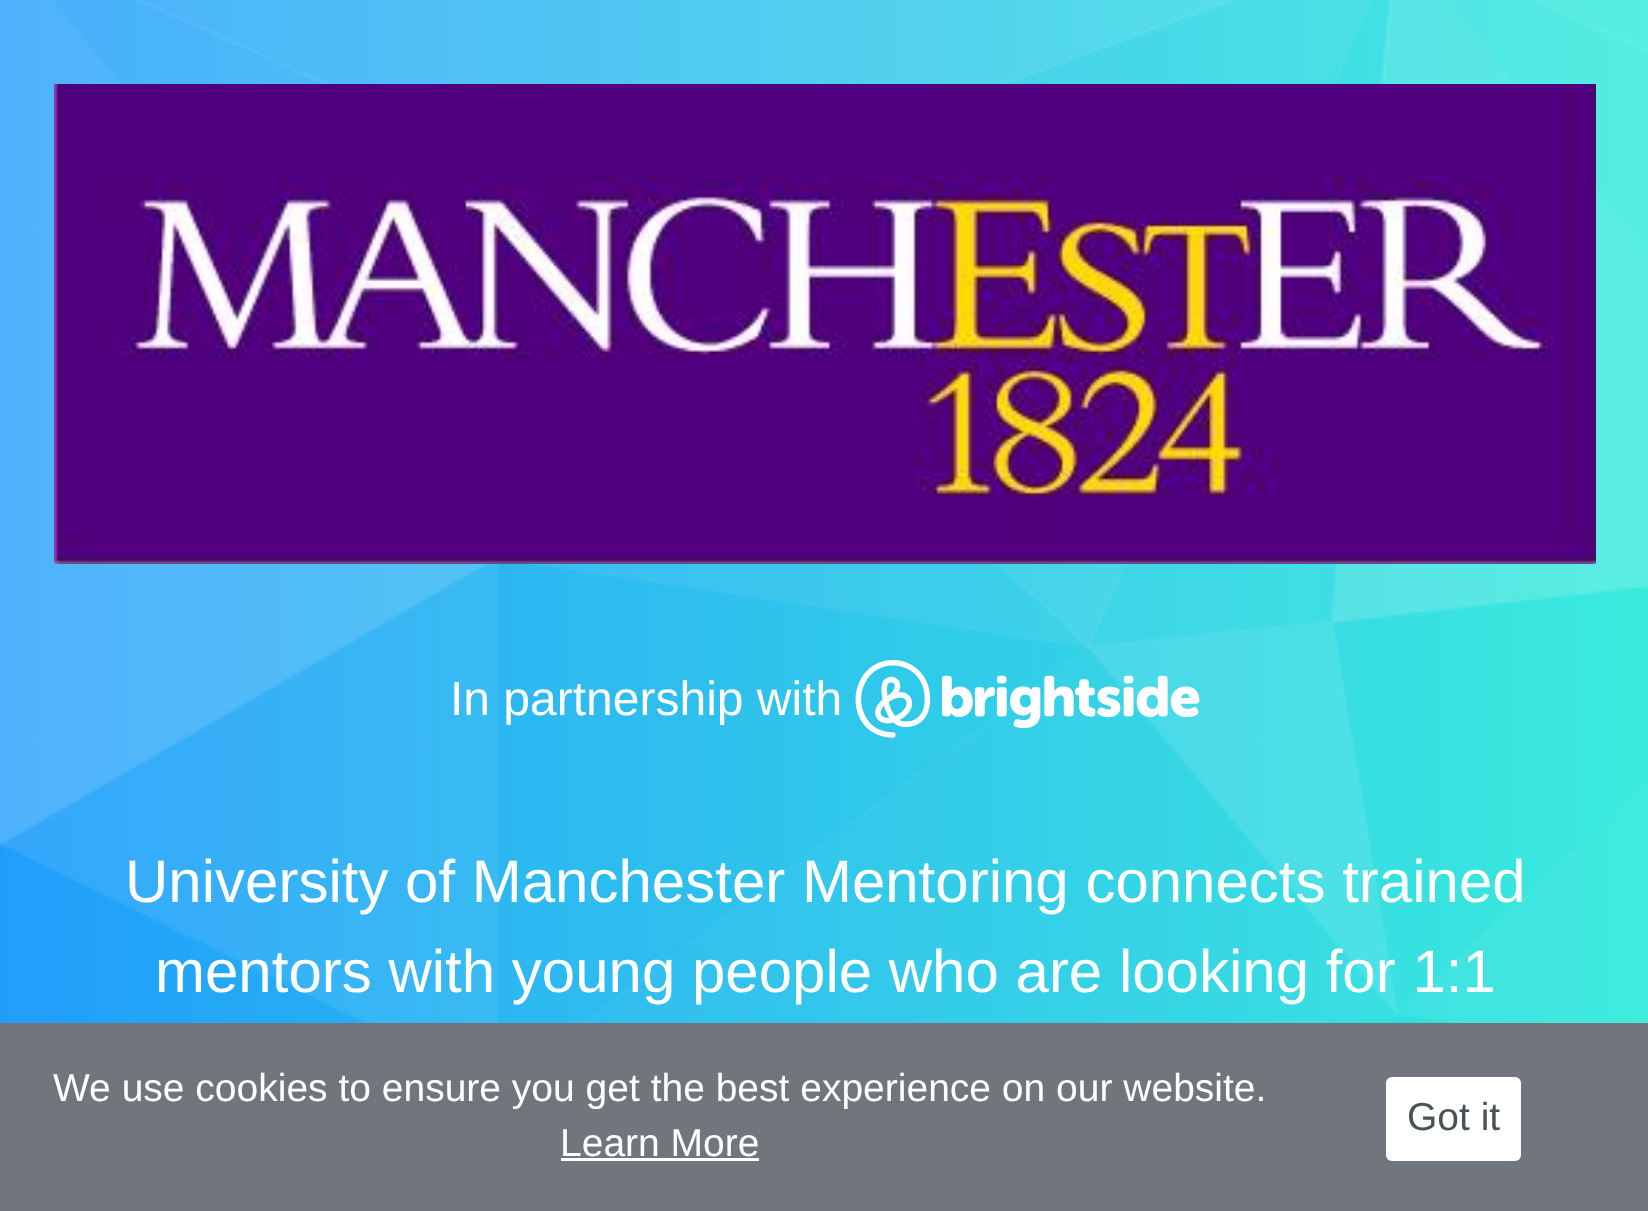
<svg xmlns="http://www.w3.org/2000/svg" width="1648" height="1211">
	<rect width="100%" height="100%" fill="#FFFFFF" />
	<image x="0" y="0" width="1648" height="1023" href="assets/img1.png" />
	<image x="54" y="84" width="1542" height="480" href="assets/img2.png" />
	<text x="450" y="715" font-family="Liberation Sans" font-size="48" fill="#FFFFFF">In partnership with</text>
	<image x="855" y="660" width="345" height="78" href="assets/img3.png" />
	<g font-family="Liberation Sans" font-size="60" fill="#FFFFFF">
		<text x="125" y="902">University of Manchester Mentoring connects trained</text>
		<text x="155" y="992">mentors with young people who are looking for 1:1</text>
	</g>
	<rect x="0" y="1023" width="1648" height="188" fill="#70767B" />
	<g font-family="Liberation Sans" font-size="39" fill="#FFFFFF">
		<text x="53" y="1101">We use cookies to ensure you get the best experience on our website.</text>
		<text x="560" y="1156">Learn More</text>
	</g>
	<rect x="561" y="1158" width="198" height="3" fill="#FFFFFF" />
	<rect x="1386" y="1077" width="135" height="84" rx="6" fill="#FFFFFF" />
	<text x="1407" y="1130" font-family="Liberation Sans" font-size="39" fill="#495258">Got it</text>
</svg>
